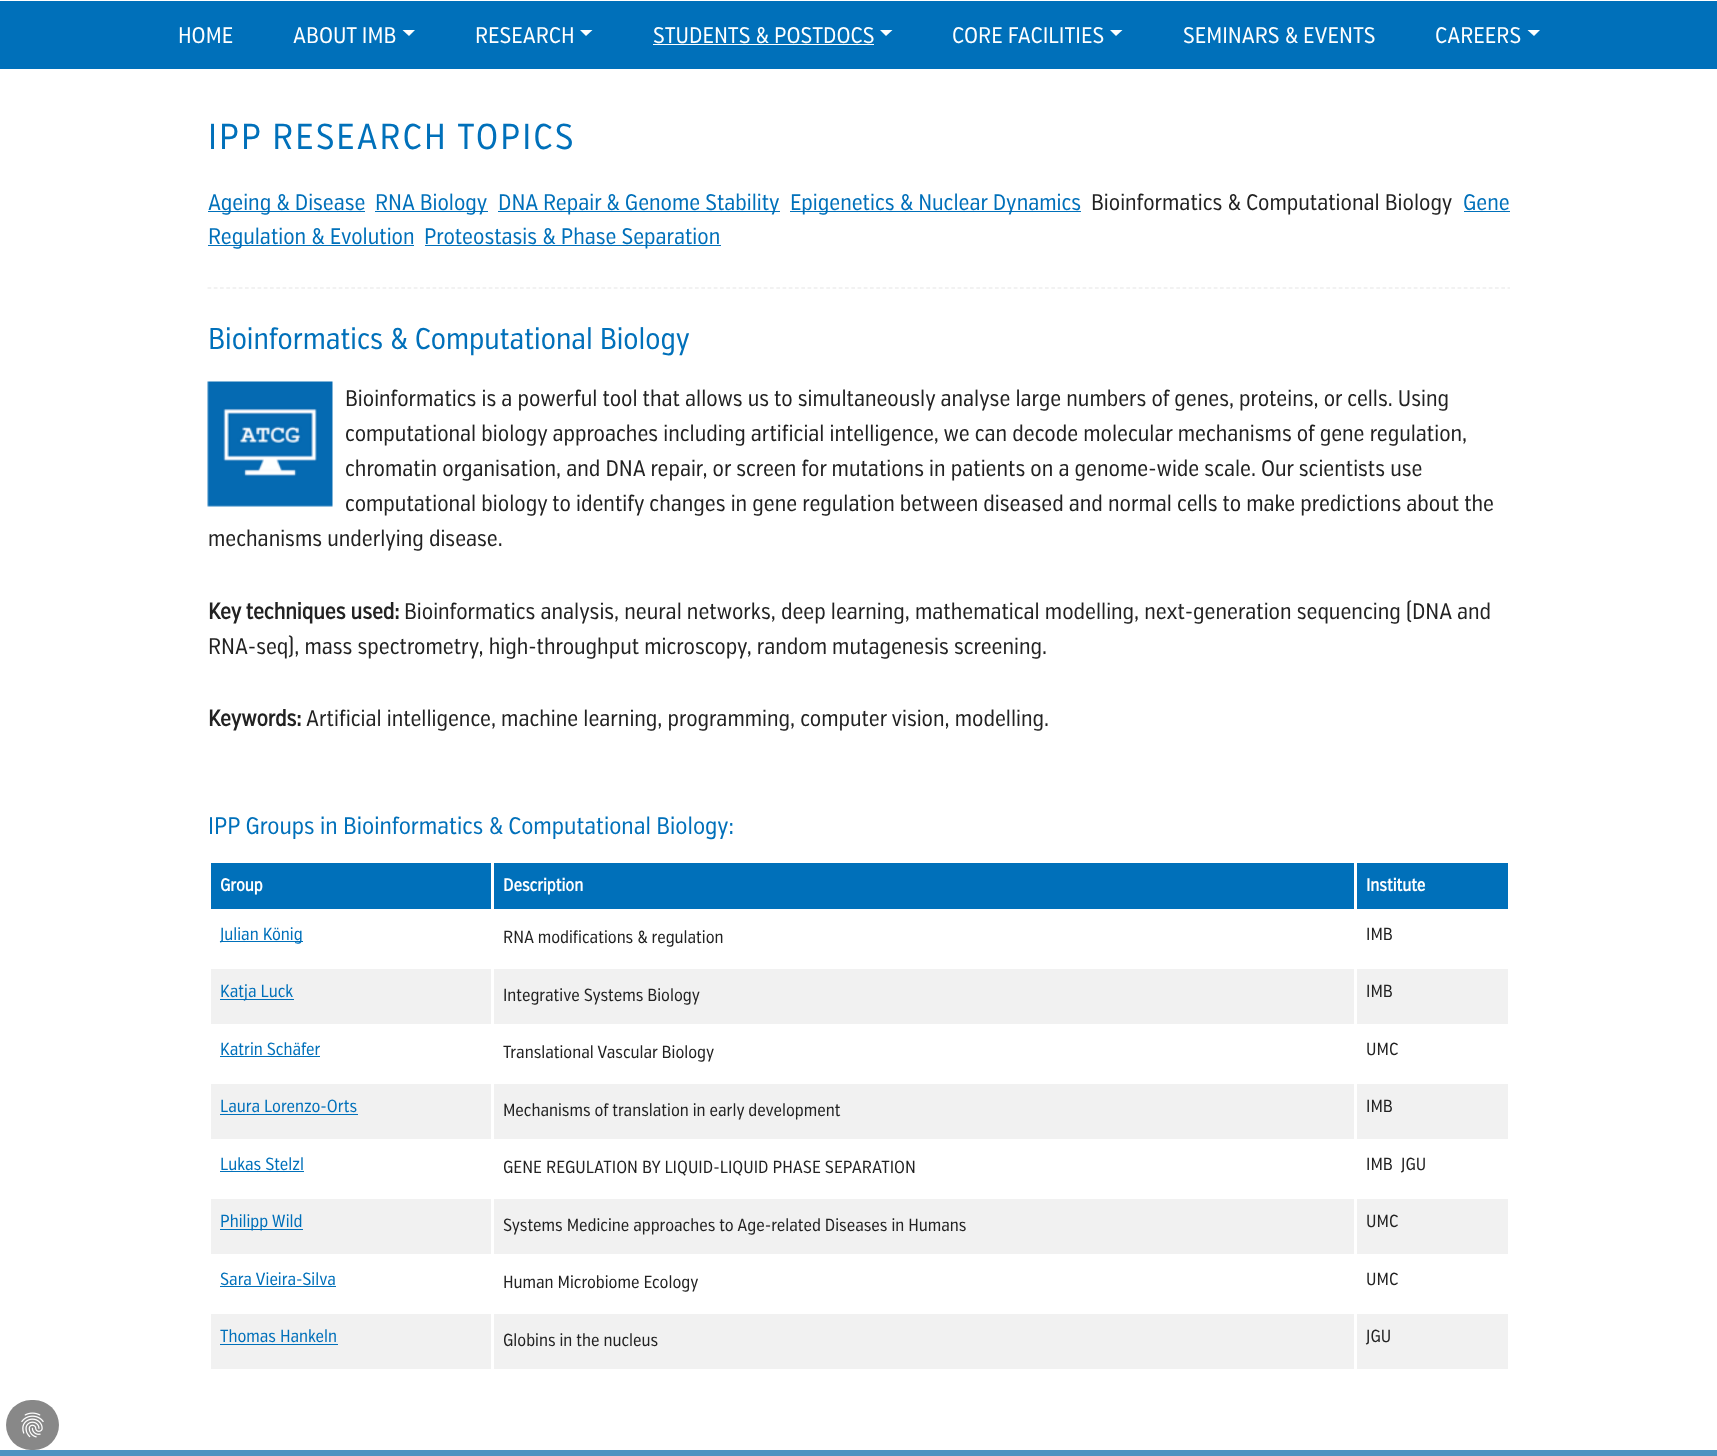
<svg xmlns="http://www.w3.org/2000/svg" width="1717" height="1456">
	<rect width="100%" height="100%" fill="#4E93C1" />
	<rect x="0" y="1" width="1717" height="68" fill="#0070BA" />
	<rect x="0" y="0" width="1717" height="1" fill="#FFFFFF" />
	<g font-family="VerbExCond" font-size="22.5" fill="#FFFFFF">
		<text x="178" y="43">HOME</text>
		<text x="293" y="43">ABOUT IMB</text>
	</g>
	<path d="M402.5 30H415L409 36Z" fill="#FFFFFF" />
	<text x="475" y="43" font-family="VerbExCond" font-size="22.5" fill="#FFFFFF">RESEARCH</text>
	<path d="M580 30H592.5L586 36Z" fill="#FFFFFF" />
	<text x="653" y="43" font-family="VerbExCond" font-size="22.5" fill="#FFFFFF">STUDENTS &amp; POSTDOCS</text>
	<rect x="653" y="44" width="221" height="1" fill="#FFFFFF" />
	<path d="M880 30H892.5L886 36Z" fill="#FFFFFF" />
	<text x="952" y="43" font-family="VerbExCond" font-size="22.5" fill="#FFFFFF">CORE FACILITIES</text>
	<path d="M1110 30H1122.5L1116 36Z" fill="#FFFFFF" />
	<g font-family="VerbExCond" font-size="22.5" fill="#FFFFFF">
		<text x="1183" y="43">SEMINARS &amp; EVENTS</text>
		<text x="1435" y="43">CAREERS</text>
	</g>
	<path d="M1527.5 30H1540L1534 36Z" fill="#FFFFFF" />
	<rect x="0" y="69" width="1717" height="1381" fill="#FFFFFF" />
	<text x="208" y="149" font-family="VerbExCond" font-size="36" letter-spacing="2" fill="#0070BA">IPP RESEARCH TOPICS</text>
	<rect x="208" y="211" width="157" height="1" fill="#0070BA" />
	<text x="208" y="210" font-family="VerbExCond" font-size="22.5" fill="#0070BA">Ageing &amp; Disease</text>
	<rect x="375" y="211" width="113" height="1" fill="#0070BA" />
	<text x="375" y="210" font-family="VerbExCond" font-size="22.5" fill="#0070BA">RNA Biology</text>
	<rect x="498" y="211" width="282" height="1" fill="#0070BA" />
	<text x="498" y="210" font-family="VerbExCond" font-size="22.5" fill="#0070BA">DNA Repair &amp; Genome Stability</text>
	<rect x="790" y="211" width="291" height="1" fill="#0070BA" />
	<text x="790" y="210" font-family="VerbExCond" font-size="22.5" fill="#0070BA">Epigenetics &amp; Nuclear Dynamics</text>
	<text x="1091" y="210" font-family="VerbExCond" font-size="22.5" fill="#222222">Bioinformatics &amp; Computational Biology</text>
	<text x="1463" y="210" font-family="VerbExCond" font-size="22.5" fill="#0070BA">Gene</text>
	<rect x="1464" y="211" width="46" height="1" fill="#0070BA" />
	<rect x="208" y="245" width="206" height="1" fill="#0070BA" />
	<text x="208" y="244" font-family="VerbExCond" font-size="22.5" fill="#0070BA">Regulation &amp; Evolution</text>
	<rect x="425" y="245" width="296" height="1" fill="#0070BA" />
	<text x="424" y="244" font-family="VerbExCond" font-size="22.5" fill="#0070BA">Proteostasis &amp; Phase Separation</text>
	<path d="M207.5 288H1510" fill="none" stroke="#E6E6E6" stroke-width="1.2" stroke-dasharray="3.75 2.5" />
	<text x="208" y="349" font-family="VerbExCond" font-size="30" fill="#0070BA">Bioinformatics &amp; Computational Biology</text>
	<image x="207" y="381" width="126" height="126" href="assets/img1.png" />
	<g font-family="VerbExCond" font-size="22.5" fill="#222222">
		<text x="345" y="406">Bioinformatics is a powerful tool that allows us to simultaneously analyse large numbers of genes, proteins, or cells. Using</text>
		<text x="345" y="441">computational biology approaches including artificial intelligence, we can decode molecular mechanisms of gene regulation,</text>
		<text x="345" y="476">chromatin organisation, and DNA repair, or screen for mutations in patients on a genome-wide scale. Our scientists use</text>
		<text x="345" y="511">computational biology to identify changes in gene regulation between diseased and normal cells to make predictions about the</text>
		<text x="208" y="546">mechanisms underlying disease.</text>
	</g>
	<text x="208" y="619" font-family="VerbExCond" font-size="22.5" font-weight="700" fill="#222222">Key techniques used:</text>
	<g font-family="VerbExCond" font-size="22.5" fill="#222222">
		<text x="404" y="619">Bioinformatics analysis, neural networks, deep learning, mathematical modelling, next-generation sequencing (DNA and</text>
		<text x="208" y="654">RNA-seq), mass spectrometry, high-throughput microscopy, random mutagenesis screening.</text>
	</g>
	<text x="208" y="726" font-family="VerbExCond" font-size="22.5" font-weight="700" fill="#222222">Keywords:</text>
	<text x="306" y="726" font-family="VerbExCond" font-size="22.5" fill="#222222">Artificial intelligence, machine learning, programming, computer vision, modelling.</text>
	<text x="208" y="834" font-family="VerbExCond" font-size="24" fill="#0070BA">IPP Groups in Bioinformatics &amp; Computational Biology:</text>
	<rect x="211" y="863" width="280" height="46" fill="#0070BA" />
	<text x="220" y="891" font-family="VerbExCond" font-size="17.5" font-weight="700" fill="#FFFFFF">Group</text>
	<rect x="494" y="863" width="860" height="46" fill="#0070BA" />
	<text x="503" y="891" font-family="VerbExCond" font-size="17.5" font-weight="700" fill="#FFFFFF">Description</text>
	<rect x="1357" y="863" width="151" height="46" fill="#0070BA" />
	<text x="1366" y="891" font-family="VerbExCond" font-size="17.5" font-weight="700" fill="#FFFFFF">Institute</text>
	<rect x="220" y="941" width="83" height="1" fill="#0070BA" />
	<text x="220" y="940" font-family="VerbExCond" font-size="17.5" fill="#0070BA">Julian König</text>
	<g font-family="VerbExCond" font-size="17.5" fill="#222222">
		<text x="503" y="943">RNA modifications &amp; regulation</text>
		<text x="1366" y="940">IMB</text>
	</g>
	<rect x="211" y="969" width="1297" height="55" fill="#F1F1F1" />
	<rect x="220" y="999" width="74" height="1" fill="#0070BA" />
	<text x="220" y="997" font-family="VerbExCond" font-size="17.5" fill="#0070BA">Katja Luck</text>
	<rect x="491" y="966" width="3" height="60" fill="#FFFFFF" />
	<text x="503" y="1001" font-family="VerbExCond" font-size="17.5" fill="#222222">Integrative Systems Biology</text>
	<rect x="1354" y="966" width="3" height="60" fill="#FFFFFF" />
	<text x="1366" y="997" font-family="VerbExCond" font-size="17.5" fill="#222222">IMB</text>
	<text x="220" y="1055" font-family="VerbExCond" font-size="17.5" fill="#0070BA">Katrin Schäfer</text>
	<rect x="220" y="1056" width="100" height="1" fill="#0070BA" />
	<g font-family="VerbExCond" font-size="17.5" fill="#222222">
		<text x="503" y="1058">Translational Vascular Biology</text>
		<text x="1366" y="1055">UMC</text>
	</g>
	<rect x="211" y="1084" width="1297" height="55" fill="#F1F1F1" />
	<text x="220" y="1112" font-family="VerbExCond" font-size="17.5" fill="#0070BA">Laura Lorenzo-Orts</text>
	<rect x="220" y="1114" width="138" height="1" fill="#0070BA" />
	<rect x="491" y="1081" width="3" height="60" fill="#FFFFFF" />
	<text x="503" y="1116" font-family="VerbExCond" font-size="17.5" fill="#222222">Mechanisms of translation in early development</text>
	<rect x="1354" y="1081" width="3" height="60" fill="#FFFFFF" />
	<text x="1366" y="1112" font-family="VerbExCond" font-size="17.5" fill="#222222">IMB</text>
	<text x="220" y="1170" font-family="VerbExCond" font-size="17.5" fill="#0070BA">Lukas Stelzl</text>
	<rect x="220" y="1171" width="84" height="1" fill="#0070BA" />
	<g font-family="VerbExCond" font-size="17.5" fill="#222222">
		<text x="503" y="1173">GENE REGULATION BY LIQUID-LIQUID PHASE SEPARATION</text>
		<text x="1366" y="1170">IMB</text>
		<text x="1401" y="1170">JGU</text>
	</g>
	<rect x="211" y="1199" width="1297" height="55" fill="#F1F1F1" />
	<rect x="220" y="1229" width="83" height="1" fill="#0070BA" />
	<text x="220" y="1227" font-family="VerbExCond" font-size="17.5" fill="#0070BA">Philipp Wild</text>
	<rect x="491" y="1196" width="3" height="60" fill="#FFFFFF" />
	<text x="503" y="1231" font-family="VerbExCond" font-size="17.5" fill="#222222">Systems Medicine approaches to Age-related Diseases in Humans</text>
	<rect x="1354" y="1196" width="3" height="60" fill="#FFFFFF" />
	<text x="1366" y="1227" font-family="VerbExCond" font-size="17.5" fill="#222222">UMC</text>
	<text x="220" y="1285" font-family="VerbExCond" font-size="17.5" fill="#0070BA">Sara Vieira-Silva</text>
	<rect x="220" y="1286" width="116" height="1" fill="#0070BA" />
	<g font-family="VerbExCond" font-size="17.5" fill="#222222">
		<text x="503" y="1288">Human Microbiome Ecology</text>
		<text x="1366" y="1285">UMC</text>
	</g>
	<rect x="211" y="1314" width="1297" height="55" fill="#F1F1F1" />
	<text x="220" y="1342" font-family="VerbExCond" font-size="17.5" fill="#0070BA">Thomas Hankeln</text>
	<rect x="220" y="1344" width="118" height="1" fill="#0070BA" />
	<rect x="491" y="1311" width="3" height="60" fill="#FFFFFF" />
	<text x="503" y="1346" font-family="VerbExCond" font-size="17.5" fill="#222222">Globins in the nucleus</text>
	<rect x="1354" y="1311" width="3" height="60" fill="#FFFFFF" />
	<text x="1366" y="1342" font-family="VerbExCond" font-size="17.5" fill="#222222">JGU</text>
	<rect x="6" y="1400" width="53" height="50" rx="25" fill="#888888" />
	<image x="21" y="1412" width="23" height="26" href="assets/img2.png" />
</svg>
